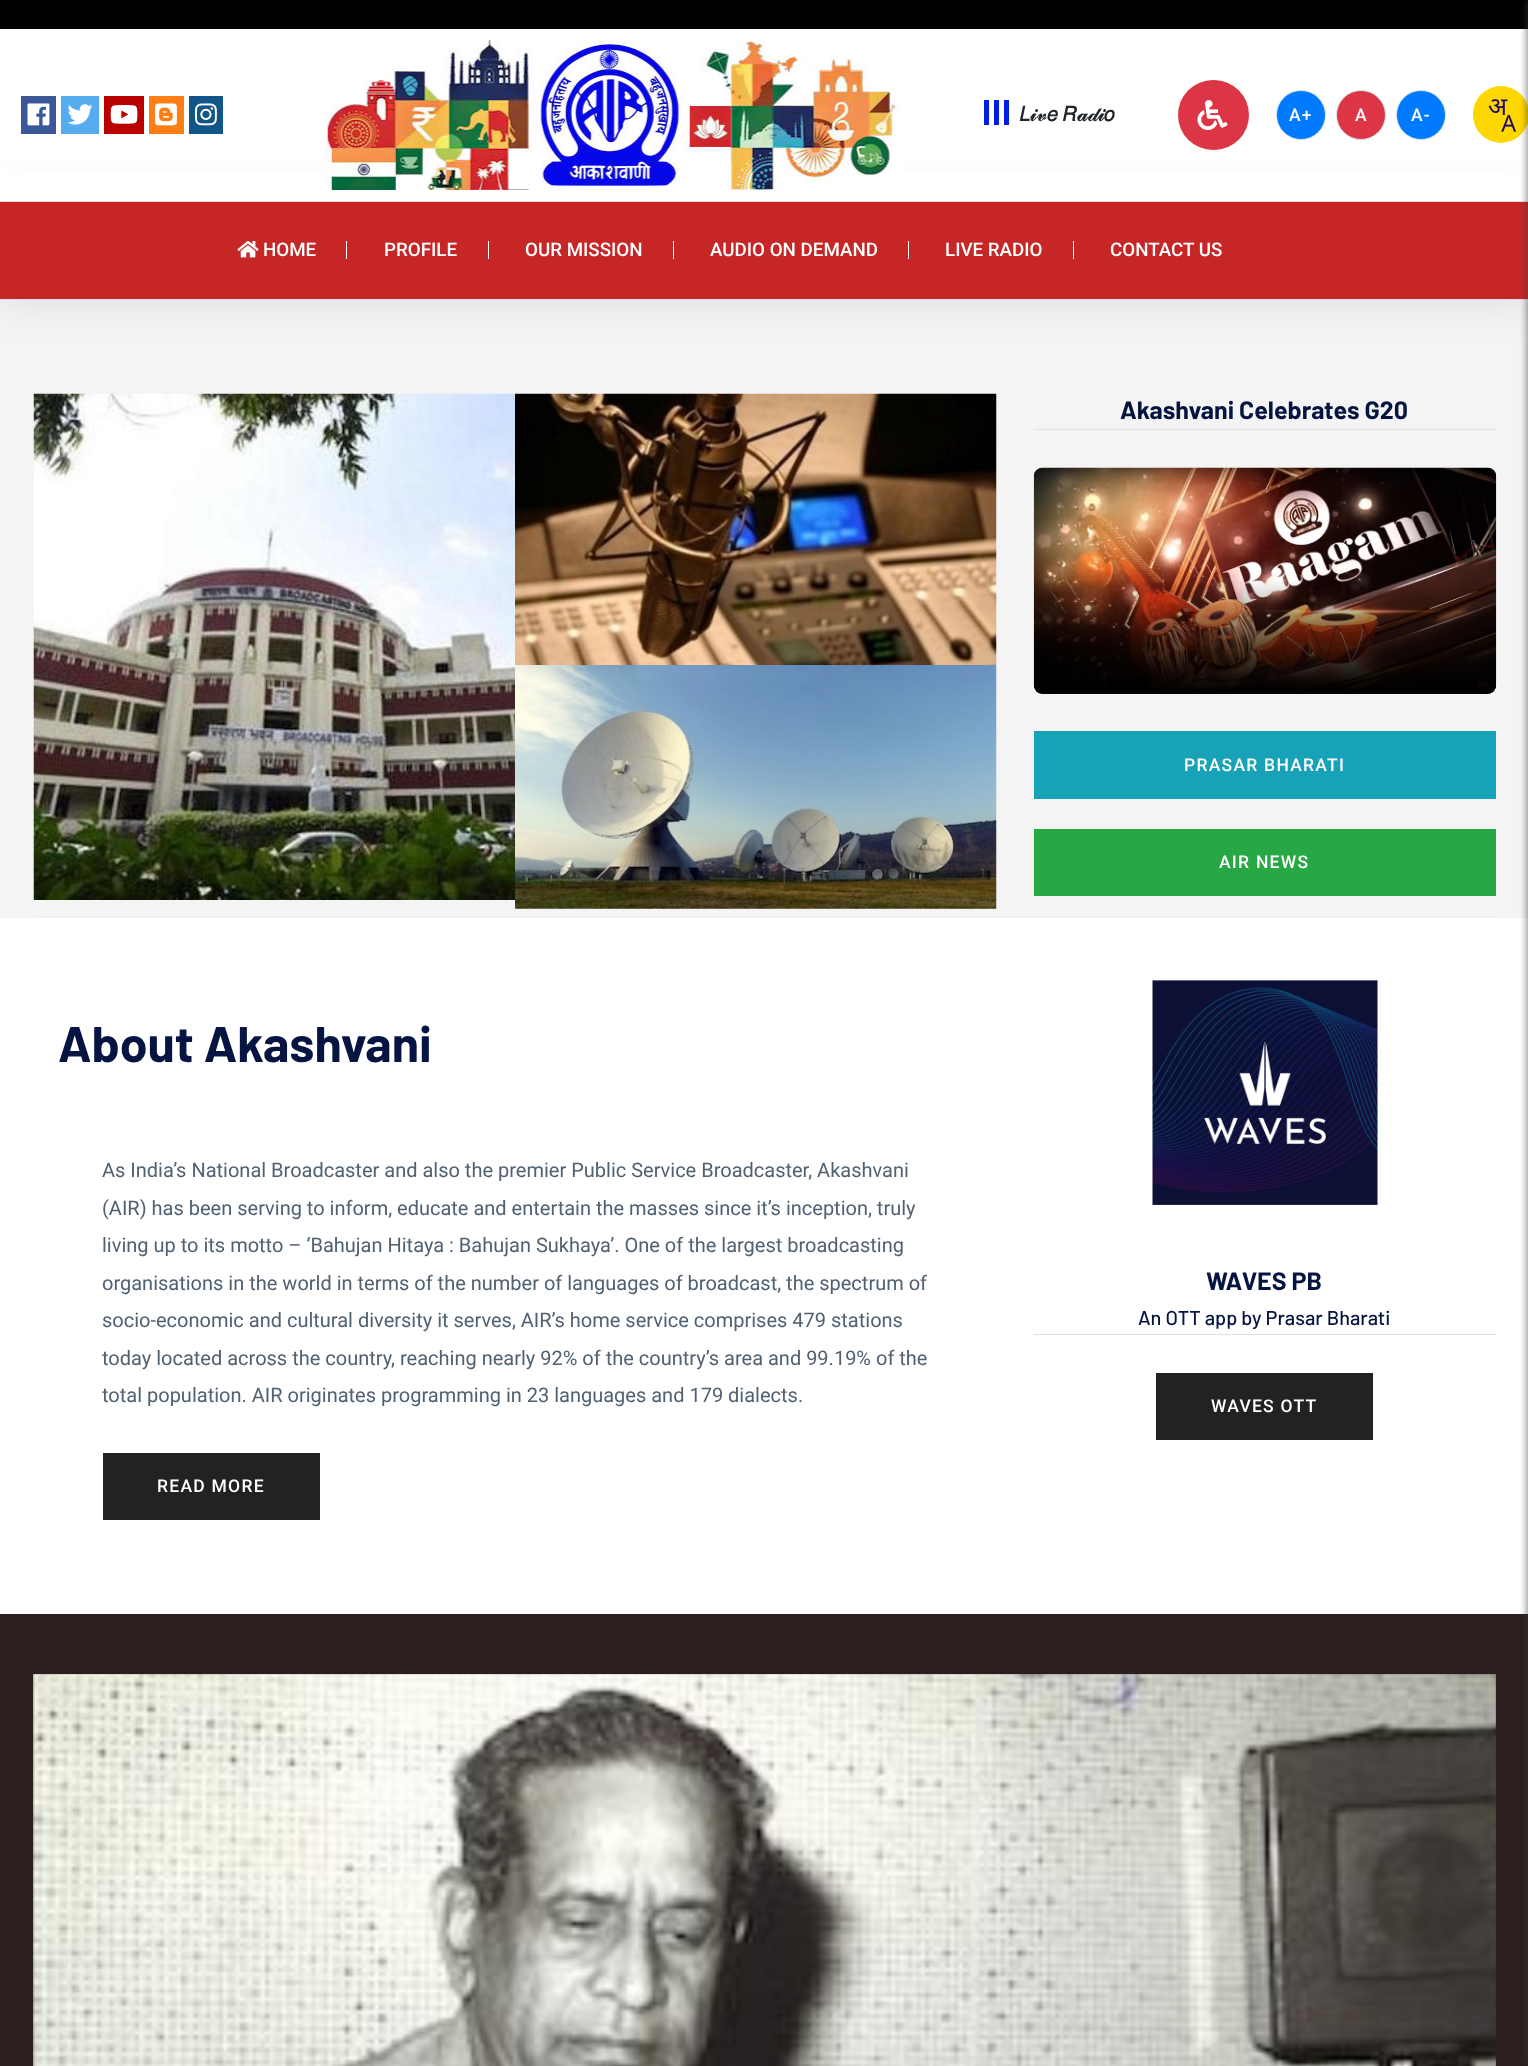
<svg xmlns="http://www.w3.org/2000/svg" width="1528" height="2066">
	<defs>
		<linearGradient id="g1" gradientUnits="userSpaceOnUse" x1="1265" y1="580" x2="1265" y2="694"><stop offset="0" stop-color="#000000" stop-opacity="0.9" /><stop offset="0" stop-color="#000000" stop-opacity="0.01" /><stop offset="1" stop-color="#000000" /></linearGradient>
	</defs>
	<rect width="100%" height="100%" fill="#FFFFFF" />
	<rect x="0" y="0" width="1528" height="29" fill="#000000" />
	<rect x="0" y="300" width="1528" height="618" fill="#F4F4F4" />
	<rect x="0" y="201" width="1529" height="99" fill="#000000" fill-opacity="0.1" filter="blur(22.5px)" />
	<rect x="0" y="172" width="1528" height="29" fill="#FFFFFF" />
	<rect x="21" y="96" width="35" height="38" fill="#3B5998" />
	<image x="27" y="103" width="23" height="23" href="assets/img1.png" />
	<rect x="61" y="96" width="38" height="38" fill="#55ACEE" />
	<image x="67" y="104" width="26" height="21" href="assets/img2.png" />
	<rect x="104" y="96" width="40" height="38" fill="#BB0000" />
	<image x="110" y="105" width="28" height="19" href="assets/img3.png" />
	<rect x="149" y="96" width="35" height="38" fill="#FD7E14" />
	<image x="155" y="103" width="22" height="23" href="assets/img4.png" />
	<rect x="189" y="96" width="34" height="38" fill="#125688" />
	<image x="195" y="103" width="22" height="23" href="assets/img5.png" />
	<image x="325" y="40" width="576" height="150" href="assets/img6.png" />
	<rect x="984" y="100" width="5" height="25" fill="#001EE3" />
	<rect x="994" y="100" width="5" height="25" fill="#001EE3" />
	<rect x="1004" y="100" width="5" height="25" fill="#001EE3" />
	<text x="1019" y="121" font-family="FreeSans" font-size="20" font-weight="700" fill="#212529">𝐿</text>
	<text x="1030" y="121" font-family="FreeSerif" font-size="20" font-weight="700" fill="#212529">𝒾𝓋</text>
	<text x="1047" y="121" font-family="FreeSans" font-size="20" font-weight="700" fill="#212529">𝑒 𝑅</text>
	<text x="1077" y="121" font-family="FreeSerif" font-size="20" font-weight="700" fill="#212529">𝒶𝒹𝒾</text>
	<text x="1104" y="121" font-family="FreeSans" font-size="20" font-weight="700" fill="#212529">𝑜</text>
	<rect x="1178" y="80" width="71" height="70" rx="35" fill="#DC3545" />
	<image x="1197" y="100" width="31" height="30" href="assets/img7.png" />
	<circle cx="1301" cy="115" r="24.5" fill="#007BFF" stroke="#DEE2E6" />
	<text x="1289" y="121" font-family="Roboto" font-size="17.5" font-weight="500" letter-spacing="1.25" fill="#FFFFFF">A+</text>
	<circle cx="1361" cy="115" r="24.5" fill="#DC3545" stroke="#DEE2E6" />
	<text x="1355" y="121" font-family="Roboto" font-size="17.5" font-weight="500" letter-spacing="1.25" fill="#FFFFFF">A</text>
	<circle cx="1421" cy="115" r="24.5" fill="#007BFF" stroke="#DEE2E6" />
	<text x="1411" y="121" font-family="Roboto" font-size="17.5" font-weight="500" letter-spacing="1.25" fill="#FFFFFF">A-</text>
	<rect x="1473" y="86" width="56" height="57" rx="28" fill="#FFD700" />
	<image x="1488" y="99" width="29" height="33" href="assets/img8.png" />
	<rect x="0" y="202" width="1528" height="97" fill="#C72626" />
	<rect x="0" y="201" width="1528" height="1" fill="#DEE2E6" />
	<rect x="0" y="299" width="1528" height="1" fill="#DEE2E6" />
	<image x="237" y="241" width="22" height="17" href="assets/img9.png" />
	<text x="263" y="256" font-family="Roboto" font-size="18.75" font-weight="500" fill="#FFFFFF">HOME</text>
	<rect x="346" y="241" width="1" height="18" fill="#FFFFFF" />
	<text x="384" y="256" font-family="Roboto" font-size="18.75" font-weight="500" fill="#FFFFFF">PROFILE</text>
	<rect x="488" y="241" width="1" height="18" fill="#FFFFFF" />
	<text x="525" y="256" font-family="Roboto" font-size="18.75" font-weight="500" fill="#FFFFFF">OUR MISSION</text>
	<rect x="673" y="241" width="1" height="18" fill="#FFFFFF" />
	<text x="710" y="256" font-family="Roboto" font-size="18.75" font-weight="500" fill="#FFFFFF">AUDIO ON DEMAND</text>
	<rect x="908" y="241" width="1" height="18" fill="#FFFFFF" />
	<text x="945" y="256" font-family="Roboto" font-size="18.75" font-weight="500" fill="#FFFFFF">LIVE RADIO</text>
	<rect x="1073" y="241" width="1" height="18" fill="#FFFFFF" />
	<text x="1110" y="256" font-family="Roboto" font-size="18.75" font-weight="500" fill="#FFFFFF">CONTACT US</text>
	<rect x="0" y="1614" width="1528" height="452" fill="#2B1E1E" />
	<rect x="1526" y="0" width="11" height="2066" fill="#363737" fill-opacity="0.5" filter="blur(3px)" />
	<rect x="34" y="916" width="1462" height="1" fill="#EEEEEE" />
	<image x="33" y="393" width="482" height="507" href="assets/img10.png" />
	<image x="515" y="393" width="482" height="272" href="assets/img11.png" />
	<image x="515" y="665" width="482" height="244" href="assets/img12.png" />
	<rect x="1034" y="429" width="462" height="1" fill="#DEE2E6" />
	<text x="1120" y="419" font-family="Barlow" font-size="25" font-weight="700" fill="#051441">Akashvani Celebrates G20</text>
	<image x="1033" y="467" width="464" height="227" href="assets/img13.png" />
	<path d="M1034 580H1496V685C1496 690 1492 694 1487 694H1043C1038 694 1034 690 1034 685Z" fill="url(#g1)" />
	<rect x="1034" y="731" width="462" height="68" fill="#17A2B8" />
	<text x="1184" y="771" font-family="Roboto" font-size="17.5" font-weight="500" letter-spacing="1.25" fill="#FFFFFF">PRASAR BHARATI</text>
	<rect x="1034" y="829" width="462" height="67" fill="#28A745" />
	<text x="1219" y="868" font-family="Roboto" font-size="17.5" font-weight="500" letter-spacing="1.25" fill="#FFFFFF">AIR NEWS</text>
	<text x="58" y="1062" font-family="Barlow" font-size="50" font-weight="700" fill="#051441">About Akashvani</text>
	<g font-family="Roboto" font-size="20" fill="#506172">
		<text x="102" y="1177">As India’s National Broadcaster and also the premier Public Service Broadcaster, Akashvani</text>
		<text x="102" y="1215">(AIR) has been serving to inform, educate and entertain the masses since it’s inception, truly</text>
		<text x="102" y="1252">living up to its motto – ‘Bahujan Hitaya : Bahujan Sukhaya’. One of the largest broadcasting</text>
		<text x="102" y="1290">organisations in the world in terms of the number of languages of broadcast, the spectrum of</text>
		<text x="102" y="1327">socio-economic and cultural diversity it serves, AIR’s home service comprises 479 stations</text>
		<text x="102" y="1365">today located across the country, reaching nearly 92% of the country’s area and 99.19% of the</text>
		<text x="102" y="1402">total population. AIR originates programming in 23 languages and 179 dialects.</text>
	</g>
	<rect x="103" y="1453" width="217" height="67" fill="#222222" />
	<text x="157" y="1492" font-family="Roboto" font-size="17.5" font-weight="500" letter-spacing="1.25" fill="#FFFFFF">READ MORE</text>
	<image x="1152" y="980" width="226" height="225" href="assets/img14.png" />
	<text x="1206" y="1290" font-family="Barlow" font-size="25" font-weight="700" fill="#051441">WAVES PB</text>
	<rect x="1034" y="1334" width="462" height="1" fill="#DEE2E6" />
	<text x="1138" y="1325" font-family="Barlow" font-size="20" font-weight="500" fill="#051441">An OTT app by Prasar Bharati</text>
	<rect x="1156" y="1373" width="217" height="67" fill="#222222" />
	<text x="1211" y="1412" font-family="Roboto" font-size="17.5" font-weight="500" letter-spacing="1.25" fill="#FFFFFF">WAVES OTT</text>
	<image x="33" y="1674" width="1463" height="392" href="assets/img15.png" />
</svg>
